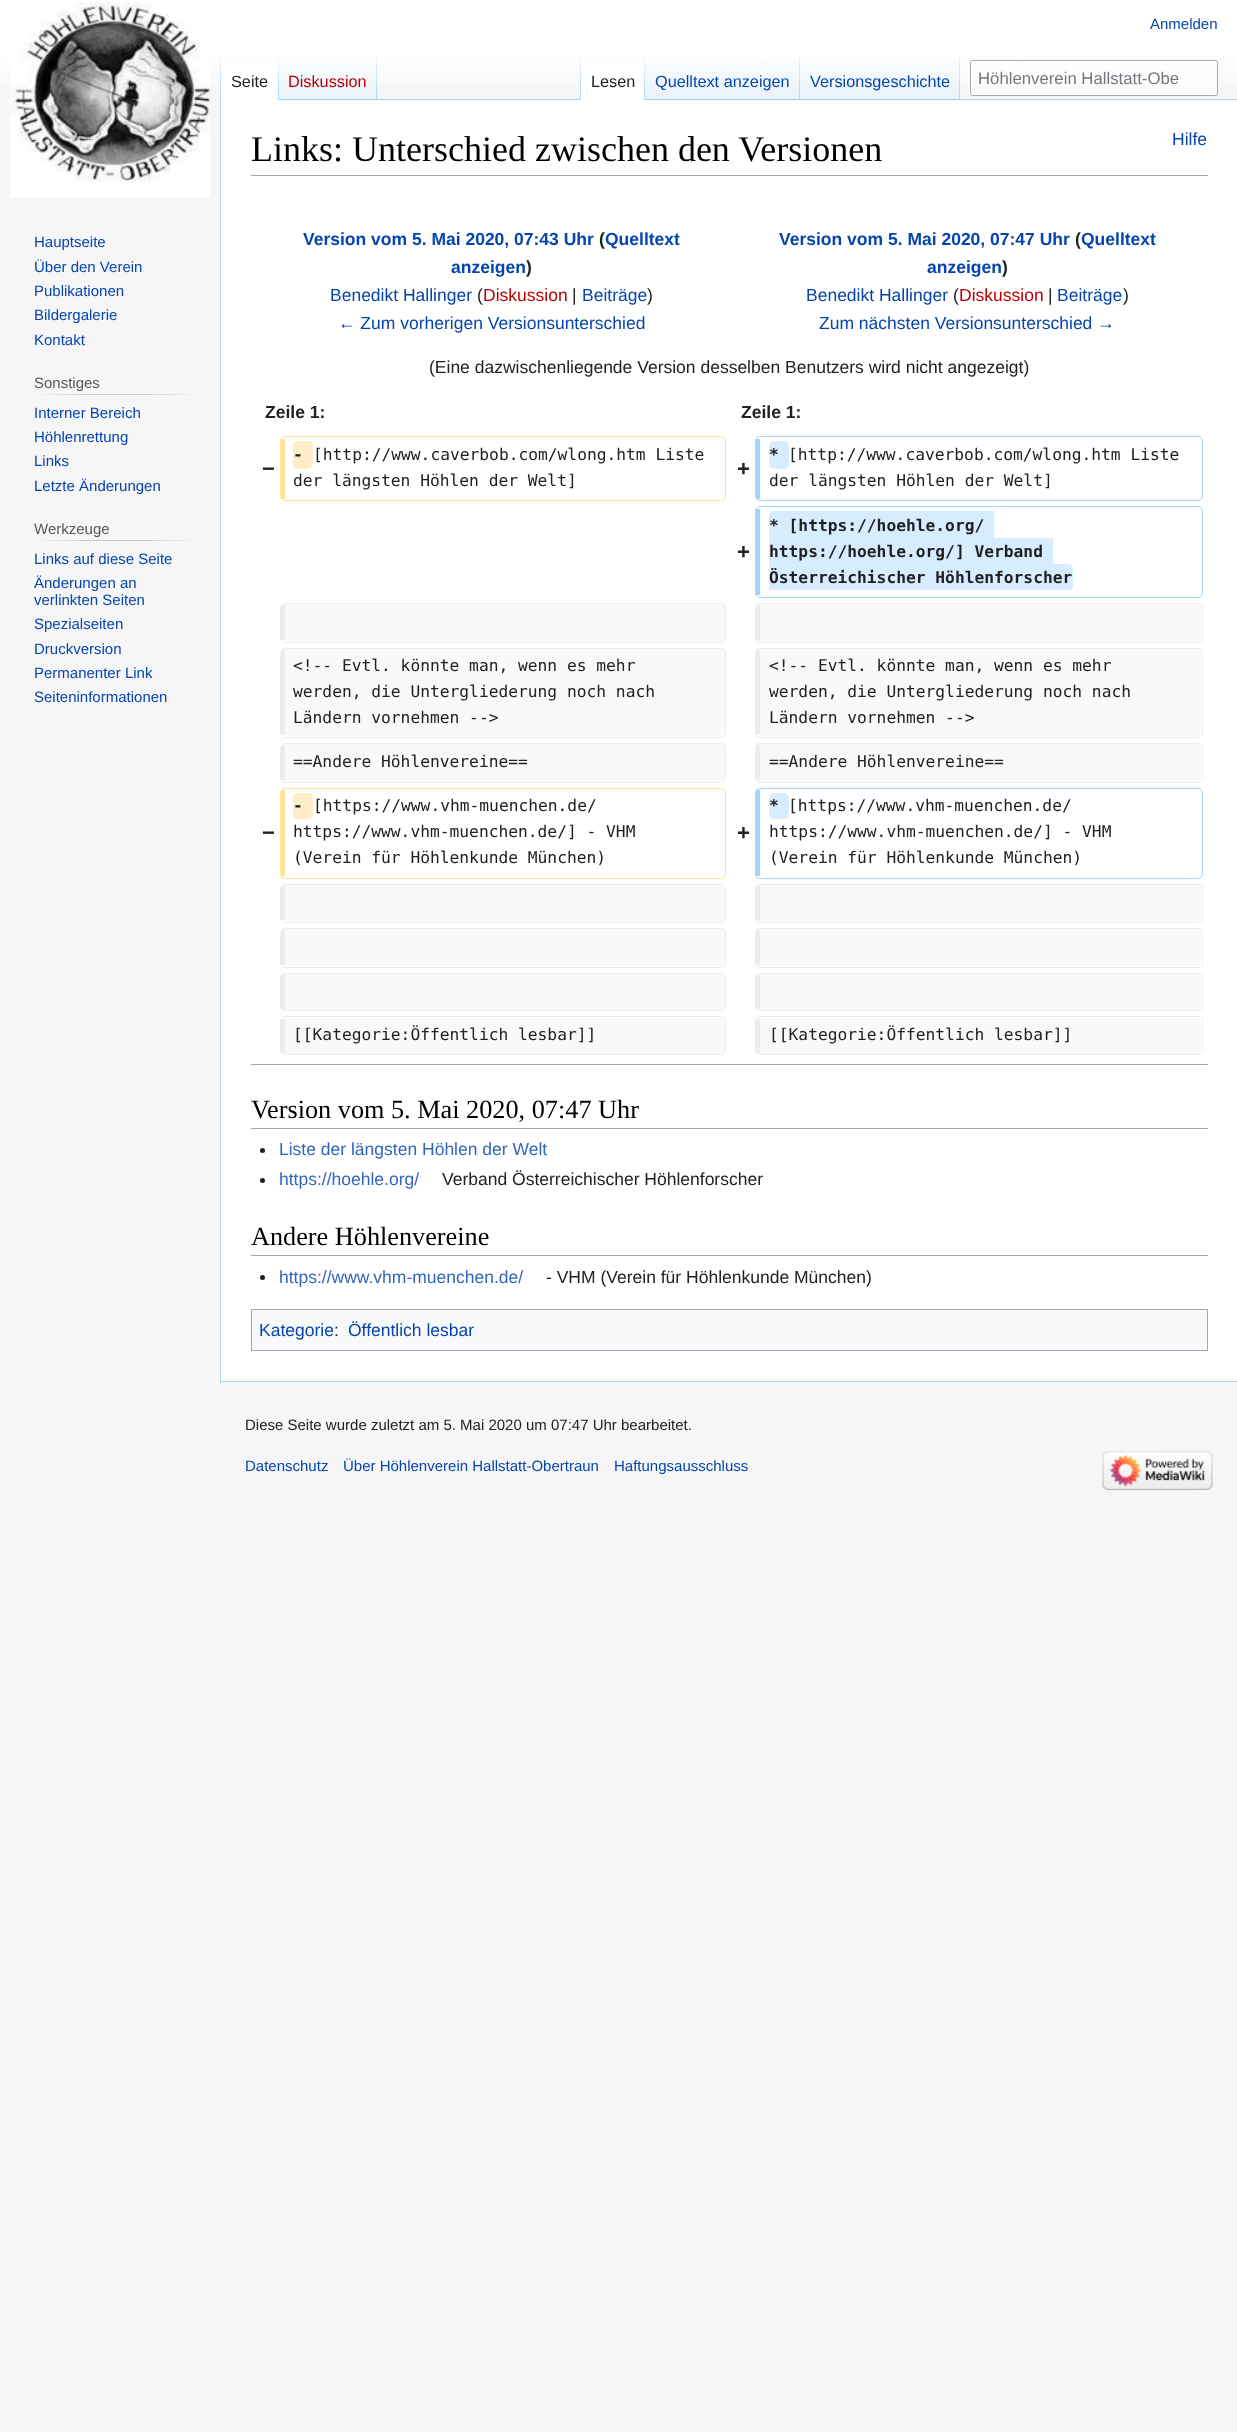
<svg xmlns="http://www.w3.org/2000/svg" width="1237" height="2432">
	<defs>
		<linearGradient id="g1" gradientUnits="userSpaceOnUse" x1="619" y1="0" x2="619" y2="100"><stop offset="0.5" stop-color="#FFFFFF" /><stop offset="1" stop-color="#F6F6F6" /></linearGradient>
		<linearGradient id="g2" gradientUnits="userSpaceOnUse" x1="221" y1="50" x2="221" y2="100"><stop offset="0" stop-color="#A7D7F9" stop-opacity="0" /><stop offset="1" stop-color="#A7D7F9" /></linearGradient>
		<linearGradient id="g3" gradientUnits="userSpaceOnUse" x1="278" y1="50" x2="278" y2="100"><stop offset="0" stop-color="#FFFFFF" /><stop offset="1" stop-color="#A7D7F9" /></linearGradient>
		<linearGradient id="g4" gradientUnits="userSpaceOnUse" x1="328" y1="100" x2="328" y2="50"><stop offset="0" stop-color="#77C1F6" /><stop offset="0.03" stop-color="#E8F2F8" /><stop offset="1" stop-color="#FFFFFF" /></linearGradient>
		<linearGradient id="g5" gradientUnits="userSpaceOnUse" x1="377" y1="50" x2="377" y2="100"><stop offset="0" stop-color="#A7D7F9" stop-opacity="0" /><stop offset="1" stop-color="#A7D7F9" /></linearGradient>
		<linearGradient id="g6" gradientUnits="userSpaceOnUse" x1="581" y1="50" x2="581" y2="100"><stop offset="0" stop-color="#A7D7F9" stop-opacity="0" /><stop offset="1" stop-color="#A7D7F9" /></linearGradient>
		<linearGradient id="g7" gradientUnits="userSpaceOnUse" x1="644" y1="50" x2="644" y2="100"><stop offset="0" stop-color="#FFFFFF" /><stop offset="1" stop-color="#A7D7F9" /></linearGradient>
		<linearGradient id="g8" gradientUnits="userSpaceOnUse" x1="723" y1="100" x2="723" y2="50"><stop offset="0" stop-color="#77C1F6" /><stop offset="0.03" stop-color="#E8F2F8" /><stop offset="1" stop-color="#FFFFFF" /></linearGradient>
		<linearGradient id="g9" gradientUnits="userSpaceOnUse" x1="799" y1="50" x2="799" y2="100"><stop offset="0" stop-color="#A7D7F9" stop-opacity="0" /><stop offset="1" stop-color="#A7D7F9" /></linearGradient>
		<linearGradient id="g10" gradientUnits="userSpaceOnUse" x1="880" y1="100" x2="880" y2="50"><stop offset="0" stop-color="#77C1F6" /><stop offset="0.03" stop-color="#E8F2F8" /><stop offset="1" stop-color="#FFFFFF" /></linearGradient>
		<linearGradient id="g11" gradientUnits="userSpaceOnUse" x1="959" y1="50" x2="959" y2="100"><stop offset="0" stop-color="#A7D7F9" stop-opacity="0" /><stop offset="1" stop-color="#A7D7F9" /></linearGradient>
		<linearGradient id="g12" gradientUnits="userSpaceOnUse" x1="34" y1="394" x2="198" y2="394"><stop offset="0" stop-color="#F6F6F6" /><stop offset="0.33" stop-color="#C8CCD1" /><stop offset="0.66" stop-color="#C8CCD1" /><stop offset="1" stop-color="#F6F6F6" /></linearGradient>
		<linearGradient id="g13" gradientUnits="userSpaceOnUse" x1="34" y1="541" x2="198" y2="541"><stop offset="0" stop-color="#F6F6F6" /><stop offset="0.33" stop-color="#C8CCD1" /><stop offset="0.66" stop-color="#C8CCD1" /><stop offset="1" stop-color="#F6F6F6" /></linearGradient>
	</defs>
	<rect width="100%" height="100%" fill="#F6F6F6" />
	<rect x="0" y="0" width="1237" height="86" fill="url(#g1)" />
	<text x="1150" y="29" font-family="Liberation Sans" font-size="15" fill="#0645AD">Anmelden</text>
	<rect x="220" y="1381" width="1017" height="1" fill="#A7D7F9" />
	<rect x="220" y="99" width="1" height="1284" fill="#A7D7F9" />
	<rect x="220" y="50" width="1" height="50" fill="url(#g2)" />
	<rect x="221" y="64" width="57" height="36" fill="#FFFFFF" />
	<rect x="278" y="50" width="1" height="50" fill="url(#g3)" />
	<text x="231" y="87" font-family="Liberation Sans" font-size="16.25" fill="#202122">Seite</text>
	<rect x="279" y="57" width="99" height="43" fill="url(#g4)" />
	<rect x="376" y="50" width="1" height="50" fill="url(#g5)" />
	<text x="288" y="87" font-family="Liberation Sans" font-size="16.25" fill="#BA0000">Diskussion</text>
	<rect x="378" y="99" width="859" height="1" fill="#A7D7F9" />
	<rect x="580" y="50" width="1" height="50" fill="url(#g6)" />
	<rect x="581" y="64" width="63" height="36" fill="#FFFFFF" />
	<rect x="644" y="50" width="1" height="50" fill="url(#g7)" />
	<text x="591" y="87" font-family="Liberation Sans" font-size="16.25" fill="#202122">Lesen</text>
	<rect x="645" y="57" width="155" height="43" fill="url(#g8)" />
	<rect x="799" y="50" width="1" height="50" fill="url(#g9)" />
	<text x="655" y="87" font-family="Liberation Sans" font-size="16.25" fill="#0645AD">Quelltext anzeigen</text>
	<rect x="800" y="57" width="160" height="43" fill="url(#g10)" />
	<rect x="959" y="50" width="1" height="50" fill="url(#g11)" />
	<text x="810" y="87" font-family="Liberation Sans" font-size="16.25" fill="#0645AD">Versionsgeschichte</text>
	<rect x="970.5" y="60.5" width="247" height="35" rx="2" fill="#FFFFFF" fill-opacity="0.5" stroke="#A2A9B1" />
	<text x="978" y="84" font-family="Liberation Sans" font-size="16.75" fill="#72777D">Höhlenverein Hallstatt-Obe</text>
	<image x="10" y="2" width="200" height="196" href="assets/img1.png" />
	<g font-family="Liberation Sans" font-size="15" fill="#0645AD">
		<text x="34" y="247">Hauptseite</text>
		<text x="34" y="272">Über den Verein</text>
		<text x="34" y="296">Publikationen</text>
		<text x="34" y="320">Bildergalerie</text>
		<text x="34" y="345">Kontakt</text>
	</g>
	<rect x="34" y="394" width="164" height="1" fill="url(#g12)" />
	<text x="34" y="388" font-family="Liberation Sans" font-size="15" fill="#54595D">Sonstiges</text>
	<g font-family="Liberation Sans" font-size="15" fill="#0645AD">
		<text x="34" y="418">Interner Bereich</text>
		<text x="34" y="442">Höhlenrettung</text>
		<text x="34" y="466">Links</text>
		<text x="34" y="491">Letzte Änderungen</text>
	</g>
	<rect x="34" y="540" width="164" height="1" fill="url(#g13)" />
	<text x="34" y="534" font-family="Liberation Sans" font-size="15" fill="#54595D">Werkzeuge</text>
	<g font-family="Liberation Sans" font-size="15" fill="#0645AD">
		<text x="34" y="564">Links auf diese Seite</text>
		<text x="34" y="588">Änderungen an</text>
		<text x="34" y="605">verlinkten Seiten</text>
		<text x="34" y="629">Spezialseiten</text>
		<text x="34" y="654">Druckversion</text>
		<text x="34" y="678">Permanenter Link</text>
		<text x="34" y="702">Seiteninformationen</text>
	</g>
	<rect x="221" y="100" width="1016" height="1281" fill="#FFFFFF" />
	<rect x="251" y="175" width="957" height="1" fill="#A2A9B1" />
	<text x="251" y="161" font-family="Liberation Serif" font-size="36" fill="#000000">Links: Unterschied zwischen den Versionen</text>
	<text x="1172" y="145" font-family="Liberation Sans" font-size="17.5" fill="#0645AD">Hilfe</text>
	<text x="303" y="245" font-family="Liberation Sans" font-size="17.5" font-weight="700" fill="#0645AD">Version vom 5. Mai 2020, 07:43 Uhr</text>
	<text x="599" y="245" font-family="Liberation Sans" font-size="17.5" font-weight="700" fill="#202122">(</text>
	<g font-family="Liberation Sans" font-size="17.5" font-weight="700" fill="#0645AD">
		<text x="605" y="245">Quelltext</text>
		<text x="451" y="273">anzeigen</text>
	</g>
	<text x="526" y="273" font-family="Liberation Sans" font-size="17.5" font-weight="700" fill="#202122">)</text>
	<text x="330" y="301" font-family="Liberation Sans" font-size="17.5" fill="#0645AD">Benedikt Hallinger</text>
	<text x="477" y="301" font-family="Liberation Sans" font-size="17.5" fill="#202122">(</text>
	<text x="483" y="301" font-family="Liberation Sans" font-size="17.5" fill="#BA0000">Diskussion</text>
	<text x="572" y="301" font-family="Liberation Sans" font-size="17.5" fill="#202122">|</text>
	<text x="582" y="301" font-family="Liberation Sans" font-size="17.5" fill="#0645AD">Beiträge</text>
	<text x="647" y="301" font-family="Liberation Sans" font-size="17.5" fill="#202122">)</text>
	<text x="338" y="329" font-family="Liberation Sans" font-size="17.5" fill="#0645AD">← Zum vorherigen Versionsunterschied</text>
	<text x="779" y="245" font-family="Liberation Sans" font-size="17.5" font-weight="700" fill="#0645AD">Version vom 5. Mai 2020, 07:47 Uhr</text>
	<text x="1075" y="245" font-family="Liberation Sans" font-size="17.5" font-weight="700" fill="#202122">(</text>
	<g font-family="Liberation Sans" font-size="17.5" font-weight="700" fill="#0645AD">
		<text x="1081" y="245">Quelltext</text>
		<text x="927" y="273">anzeigen</text>
	</g>
	<text x="1002" y="273" font-family="Liberation Sans" font-size="17.5" font-weight="700" fill="#202122">)</text>
	<text x="806" y="301" font-family="Liberation Sans" font-size="17.5" fill="#0645AD">Benedikt Hallinger</text>
	<text x="953" y="301" font-family="Liberation Sans" font-size="17.5" fill="#202122">(</text>
	<text x="959" y="301" font-family="Liberation Sans" font-size="17.5" fill="#BA0000">Diskussion</text>
	<text x="1048" y="301" font-family="Liberation Sans" font-size="17.5" fill="#202122">|</text>
	<text x="1057" y="301" font-family="Liberation Sans" font-size="17.5" fill="#0645AD">Beiträge</text>
	<text x="1123" y="301" font-family="Liberation Sans" font-size="17.5" fill="#202122">)</text>
	<text x="819" y="329" font-family="Liberation Sans" font-size="17.5" fill="#0645AD">Zum nächsten Versionsunterschied →</text>
	<text x="429" y="373" font-family="Liberation Sans" font-size="17.5" fill="#202122">(Eine dazwischenliegende Version desselben Benutzers wird nicht angezeigt)</text>
	<g font-family="Liberation Sans" font-size="17.5" font-weight="700" fill="#202122">
		<text x="265" y="418">Zeile 1:</text>
		<text x="741" y="418">Zeile 1:</text>
	</g>
	<text x="262" y="476" font-family="Liberation Sans" font-size="22" font-weight="700" fill="#202122">−</text>
	<rect x="280.5" y="436.5" width="445" height="64" rx="4.5" fill="none" stroke="#FFE49C" />
	<rect x="281" y="439" width="4" height="60" fill="#FFE49C" />
	<rect x="293" y="441" width="20" height="28" rx="5" fill="#FEEEC8" />
	<text x="293" y="460" font-family="DejaVu Sans Mono" font-size="16.25" font-weight="700" fill="#202122">-</text>
	<g font-family="DejaVu Sans Mono" font-size="16.25" fill="#202122">
		<text x="313" y="460">[http://www.caverbob.com/wlong.htm Liste</text>
		<text x="293" y="486">der längsten Höhlen der Welt]</text>
	</g>
	<text x="737" y="476" font-family="Liberation Sans" font-size="22" font-weight="700" fill="#202122">+</text>
	<rect x="755.5" y="436.5" width="447" height="64" rx="4.5" fill="none" stroke="#A3D3FF" />
	<rect x="756" y="439" width="4" height="60" fill="#A3D3FF" />
	<rect x="769" y="441" width="20" height="28" rx="5" fill="#D8ECFF" />
	<text x="769" y="460" font-family="DejaVu Sans Mono" font-size="16.25" font-weight="700" fill="#202122">*</text>
	<g font-family="DejaVu Sans Mono" font-size="16.25" fill="#202122">
		<text x="788" y="460">[http://www.caverbob.com/wlong.htm Liste</text>
		<text x="769" y="486">der längsten Höhlen der Welt]</text>
	</g>
	<text x="737" y="559" font-family="Liberation Sans" font-size="22" font-weight="700" fill="#202122">+</text>
	<rect x="755.5" y="506.5" width="447" height="91" rx="4.5" fill="none" stroke="#A3D3FF" />
	<rect x="756" y="509" width="4" height="86" fill="#A3D3FF" />
	<path d="M774 511H994V539H774C771 539 769 537 769 534V516C769 513 771 511 774 511Z" fill="#D8ECFF" />
	<text x="769" y="531" font-family="DejaVu Sans Mono" font-size="16.25" font-weight="700" fill="#202122">* [https://hoehle.org/</text>
	<rect x="769" y="538" width="284" height="26" fill="#D8ECFF" />
	<text x="769" y="557" font-family="DejaVu Sans Mono" font-size="16.25" font-weight="700" fill="#202122">https://hoehle.org/] Verband</text>
	<path d="M769 564H1068C1071 564 1073 566 1073 569V585C1073 588 1071 590 1068 590H769Z" fill="#D8ECFF" />
	<text x="769" y="583" font-family="DejaVu Sans Mono" font-size="16.25" font-weight="700" fill="#202122">Österreichischer Höhlenforscher</text>
	<path d="M285 604H722C726 605 725 610 725 613V632C725 635 726 641 721 641H285V637Z" fill="#F8F9FA" />
	<rect x="280.5" y="603.5" width="445" height="39" rx="4.5" fill="none" stroke="#EAECF0" />
	<rect x="281" y="605" width="4" height="35" fill="#EAECF0" />
	<path d="M760 604H1198C1203 605 1201 614 1201 618V632C1201 635 1202 641 1197 641H760V637Z" fill="#F8F9FA" />
	<rect x="755.5" y="603.5" width="447" height="39" rx="4.5" fill="none" stroke="#EAECF0" />
	<rect x="756" y="605" width="4" height="35" fill="#EAECF0" />
	<path d="M285 649H721C723 649 725 651 725 653V732C725 734 723 736 721 736H285V732Z" fill="#F8F9FA" />
	<rect x="280.5" y="648.5" width="445" height="89" rx="4.5" fill="none" stroke="#EAECF0" />
	<rect x="281" y="650" width="4" height="85" fill="#EAECF0" />
	<g font-family="DejaVu Sans Mono" font-size="16.25" fill="#202122">
		<text x="293" y="671">&lt;!-- Evtl. könnte man, wenn es mehr</text>
		<text x="293" y="697">werden, die Untergliederung noch nach</text>
		<text x="293" y="723">Ländern vornehmen --&gt;</text>
	</g>
	<path d="M760 649H1197C1199 649 1201 651 1201 653V732C1201 734 1199 736 1197 736H760V732Z" fill="#F8F9FA" />
	<rect x="755.5" y="648.5" width="447" height="89" rx="4.5" fill="none" stroke="#EAECF0" />
	<rect x="756" y="650" width="4" height="85" fill="#EAECF0" />
	<g font-family="DejaVu Sans Mono" font-size="16.25" fill="#202122">
		<text x="769" y="671">&lt;!-- Evtl. könnte man, wenn es mehr</text>
		<text x="769" y="697">werden, die Untergliederung noch nach</text>
		<text x="769" y="723">Ländern vornehmen --&gt;</text>
	</g>
	<path d="M285 744H722C726 745 725 750 725 753V772C725 775 726 781 721 781H285V777Z" fill="#F8F9FA" />
	<rect x="280.5" y="743.5" width="445" height="39" rx="4.5" fill="none" stroke="#EAECF0" />
	<rect x="281" y="745" width="4" height="35" fill="#EAECF0" />
	<text x="293" y="767" font-family="DejaVu Sans Mono" font-size="16.25" fill="#202122">==Andere Höhlenvereine==</text>
	<path d="M760 744H1198C1203 745 1201 754 1201 758V772C1201 775 1202 781 1197 781H760V777Z" fill="#F8F9FA" />
	<rect x="755.5" y="743.5" width="447" height="39" rx="4.5" fill="none" stroke="#EAECF0" />
	<rect x="756" y="745" width="4" height="35" fill="#EAECF0" />
	<text x="769" y="767" font-family="DejaVu Sans Mono" font-size="16.25" fill="#202122">==Andere Höhlenvereine==</text>
	<text x="262" y="840" font-family="Liberation Sans" font-size="22" font-weight="700" fill="#202122">−</text>
	<rect x="280.5" y="788.5" width="445" height="90" rx="4.5" fill="none" stroke="#FFE49C" />
	<rect x="281" y="790" width="4" height="86" fill="#FFE49C" />
	<rect x="293" y="793" width="20" height="26" rx="5" fill="#FEEEC8" />
	<text x="293" y="811" font-family="DejaVu Sans Mono" font-size="16.25" font-weight="700" fill="#202122">-</text>
	<g font-family="DejaVu Sans Mono" font-size="16.25" fill="#202122">
		<text x="313" y="811">[https://www.vhm-muenchen.de/</text>
		<text x="293" y="837">https://www.vhm-muenchen.de/] - VHM</text>
		<text x="293" y="863">(Verein für Höhlenkunde München)</text>
	</g>
	<text x="737" y="840" font-family="Liberation Sans" font-size="22" font-weight="700" fill="#202122">+</text>
	<rect x="755.5" y="788.5" width="447" height="90" rx="4.5" fill="none" stroke="#A3D3FF" />
	<rect x="756" y="790" width="4" height="86" fill="#A3D3FF" />
	<rect x="769" y="793" width="20" height="26" rx="5" fill="#D8ECFF" />
	<text x="769" y="811" font-family="DejaVu Sans Mono" font-size="16.25" font-weight="700" fill="#202122">*</text>
	<g font-family="DejaVu Sans Mono" font-size="16.25" fill="#202122">
		<text x="788" y="811">[https://www.vhm-muenchen.de/</text>
		<text x="769" y="837">https://www.vhm-muenchen.de/] - VHM</text>
		<text x="769" y="863">(Verein für Höhlenkunde München)</text>
	</g>
	<path d="M285 885H722C727 886 725 895 725 898V917C725 919 723 921 721 921H285Z" fill="#F8F9FA" />
	<rect x="280.5" y="884.5" width="445" height="38" rx="4.5" fill="none" stroke="#EAECF0" />
	<rect x="281" y="886" width="4" height="34" fill="#EAECF0" />
	<path d="M760 885H1198C1203 886 1201 895 1201 898V917C1201 919 1199 921 1197 921H760Z" fill="#F8F9FA" />
	<rect x="755.5" y="884.5" width="447" height="38" rx="4.5" fill="none" stroke="#EAECF0" />
	<rect x="756" y="886" width="4" height="34" fill="#EAECF0" />
	<path d="M285 929H722C726 930 725 935 725 938V957C725 960 726 966 721 966H285V962Z" fill="#F8F9FA" />
	<rect x="280.5" y="928.5" width="445" height="39" rx="4.5" fill="none" stroke="#EAECF0" />
	<rect x="281" y="930" width="4" height="35" fill="#EAECF0" />
	<path d="M760 929H1198C1203 930 1201 939 1201 943V957C1201 960 1202 966 1197 966H760V962Z" fill="#F8F9FA" />
	<rect x="755.5" y="928.5" width="447" height="39" rx="4.5" fill="none" stroke="#EAECF0" />
	<rect x="756" y="930" width="4" height="35" fill="#EAECF0" />
	<path d="M285 974H722C727 975 725 984 725 987V1006C725 1008 723 1010 721 1010H285Z" fill="#F8F9FA" />
	<rect x="280.5" y="973.5" width="445" height="37" rx="4.5" fill="none" stroke="#EAECF0" />
	<rect x="281" y="975" width="4" height="34" fill="#EAECF0" />
	<path d="M760 974H1198C1203 975 1201 984 1201 987V1006C1201 1008 1199 1010 1197 1010H760Z" fill="#F8F9FA" />
	<rect x="755.5" y="973.5" width="447" height="37" rx="4.5" fill="none" stroke="#EAECF0" />
	<rect x="756" y="975" width="4" height="34" fill="#EAECF0" />
	<path d="M285 1018H722C727 1019 725 1028 725 1031V1050C725 1052 723 1054 721 1054H285Z" fill="#F8F9FA" />
	<rect x="280.5" y="1016.5" width="445" height="38" rx="4.5" fill="none" stroke="#EAECF0" />
	<rect x="281" y="1019" width="4" height="34" fill="#EAECF0" />
	<text x="293" y="1040" font-family="DejaVu Sans Mono" font-size="16.25" fill="#202122">[[Kategorie:Öffentlich lesbar]]</text>
	<path d="M760 1018H1198C1203 1019 1201 1028 1201 1031V1050C1201 1052 1199 1054 1197 1054H760Z" fill="#F8F9FA" />
	<rect x="755.5" y="1016.5" width="447" height="38" rx="4.5" fill="none" stroke="#EAECF0" />
	<rect x="756" y="1019" width="4" height="34" fill="#EAECF0" />
	<text x="769" y="1040" font-family="DejaVu Sans Mono" font-size="16.25" fill="#202122">[[Kategorie:Öffentlich lesbar]]</text>
	<rect x="251" y="1064" width="957" height="1" fill="#A2A9B1" />
	<rect x="251" y="1128" width="957" height="1" fill="#A2A9B1" />
	<text x="251" y="1118" font-family="Liberation Serif" font-size="26.25" fill="#000000">Version vom 5. Mai 2020, 07:47 Uhr</text>
	<circle cx="262.5" cy="1150.5" r="2.5" fill="#202122" />
	<text x="279" y="1155" font-family="Liberation Sans" font-size="17.5" fill="#3366BB">Liste der längsten Höhlen der Welt</text>
	<circle cx="262.5" cy="1180.5" r="2.5" fill="#202122" />
	<text x="279" y="1185" font-family="Liberation Sans" font-size="17.5" fill="#3366BB">https://hoehle.org/</text>
	<text x="442" y="1185" font-family="Liberation Sans" font-size="17.5" fill="#202122">Verband Österreichischer Höhlenforscher</text>
	<rect x="251" y="1255" width="957" height="1" fill="#A2A9B1" />
	<text x="251" y="1245" font-family="Liberation Serif" font-size="26.25" fill="#000000">Andere Höhlenvereine</text>
	<circle cx="262.5" cy="1277.5" r="2.5" fill="#202122" />
	<text x="279" y="1283" font-family="Liberation Sans" font-size="17.5" fill="#3366BB">https://www.vhm-muenchen.de/</text>
	<text x="546" y="1283" font-family="Liberation Sans" font-size="17.5" fill="#202122">- VHM (Verein für Höhlenkunde München)</text>
	<rect x="251.5" y="1309.5" width="956" height="41" fill="#F8F9FA" stroke="#A2A9B1" />
	<text x="259" y="1336" font-family="Liberation Sans" font-size="17.5" fill="#0645AD">Kategorie</text>
	<text x="334" y="1336" font-family="Liberation Sans" font-size="17.5" fill="#202122">:</text>
	<text x="348" y="1336" font-family="Liberation Sans" font-size="17.5" fill="#0645AD">Öffentlich lesbar</text>
	<text x="245" y="1430" font-family="Liberation Sans" font-size="15" fill="#202122">Diese Seite wurde zuletzt am 5. Mai 2020 um 07:47 Uhr bearbeitet.</text>
	<g font-family="Liberation Sans" font-size="15" fill="#0645AD">
		<text x="245" y="1471">Datenschutz</text>
		<text x="343" y="1471">Über Höhlenverein Hallstatt-Obertraun</text>
		<text x="614" y="1471">Haftungsausschluss</text>
	</g>
	<image x="1102" y="1451" width="111" height="39" href="assets/img2.png" />
</svg>
